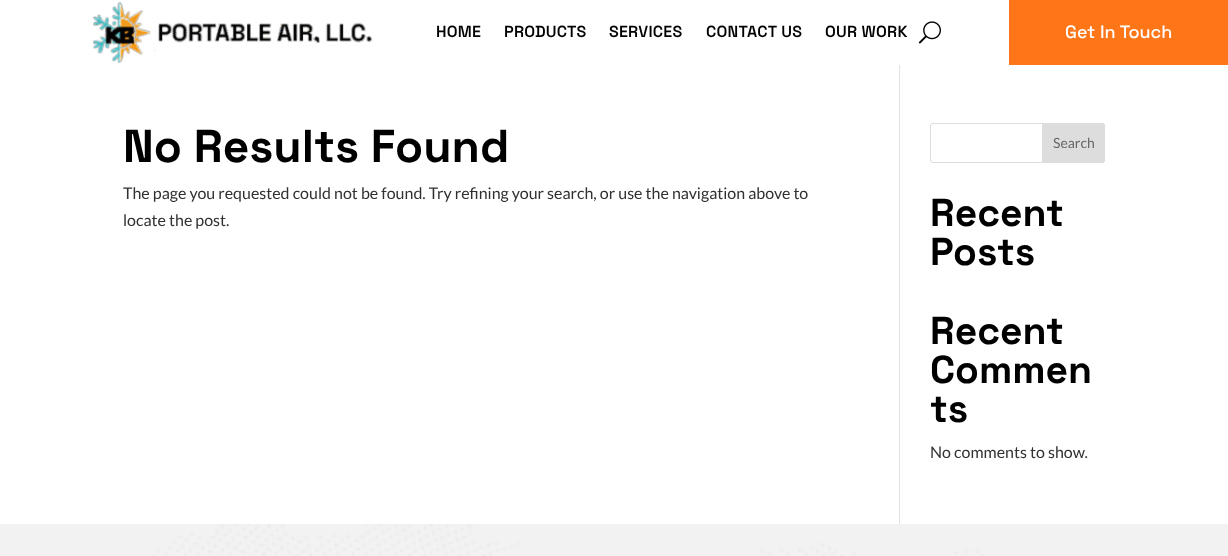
<svg xmlns="http://www.w3.org/2000/svg" width="1228" height="556">
	<rect width="100%" height="100%" fill="#FFFFFF" />
	<image x="93" y="2" width="280" height="61" href="assets/img1.png" />
	<g font-family="Space Grotesk" font-size="16" font-weight="600" letter-spacing="0.25" fill="#000000">
		<text x="436" y="37">HOME</text>
		<text x="504" y="37">PRODUCTS</text>
		<text x="609" y="37">SERVICES</text>
		<text x="706" y="37">CONTACT US</text>
		<text x="825" y="37">OUR WORK</text>
	</g>
	<image x="918" y="21" width="23" height="23" href="assets/img2.png" />
	<rect x="1009" y="0" width="219" height="65" fill="#FF7618" />
	<text x="1065" y="38" font-family="Space Grotesk" font-size="18" font-weight="500" fill="#FFFFFF">Get In Touch</text>
	<rect x="899" y="65" width="1" height="459" fill="#E2E2E2" />
	<text x="123" y="162" font-family="Space Grotesk" font-size="46" font-weight="700" fill="#000000">No Results Found</text>
	<g font-family="Lato" font-size="16" fill="#313131">
		<text x="123" y="199">The page you requested could not be found. Try refining your search, or use the navigation above to</text>
		<text x="123" y="226">locate the post.</text>
	</g>
	<rect x="930.5" y="123.5" width="174" height="39" rx="2.5" fill="none" stroke="#DDDDDD" />
	<path d="M1042.5 123.5H1102C1103.5 123.5 1104.5 124.5 1104.5 126V160C1104.5 161.5 1103.5 162.5 1102 162.5H1042.5Z" fill="#DDDDDD" stroke="#DDDDDD" />
	<text x="1053" y="148" font-family="Lato" font-size="14" fill="#666666">Search</text>
	<g font-family="Space Grotesk" font-size="39" font-weight="700" fill="#000000">
		<text x="930" y="226">Recent</text>
		<text x="930" y="265">Posts</text>
		<text x="930" y="344">Recent</text>
		<text x="930" y="383">Commen</text>
		<text x="930" y="422">ts</text>
	</g>
	<text x="930" y="458" font-family="Lato" font-size="16" fill="#313131">No comments to show.</text>
	<rect x="0" y="524" width="1228" height="32" fill="#F2F2F2" />
	<image x="153" y="524" width="832" height="32" href="assets/img3.png" />
</svg>
